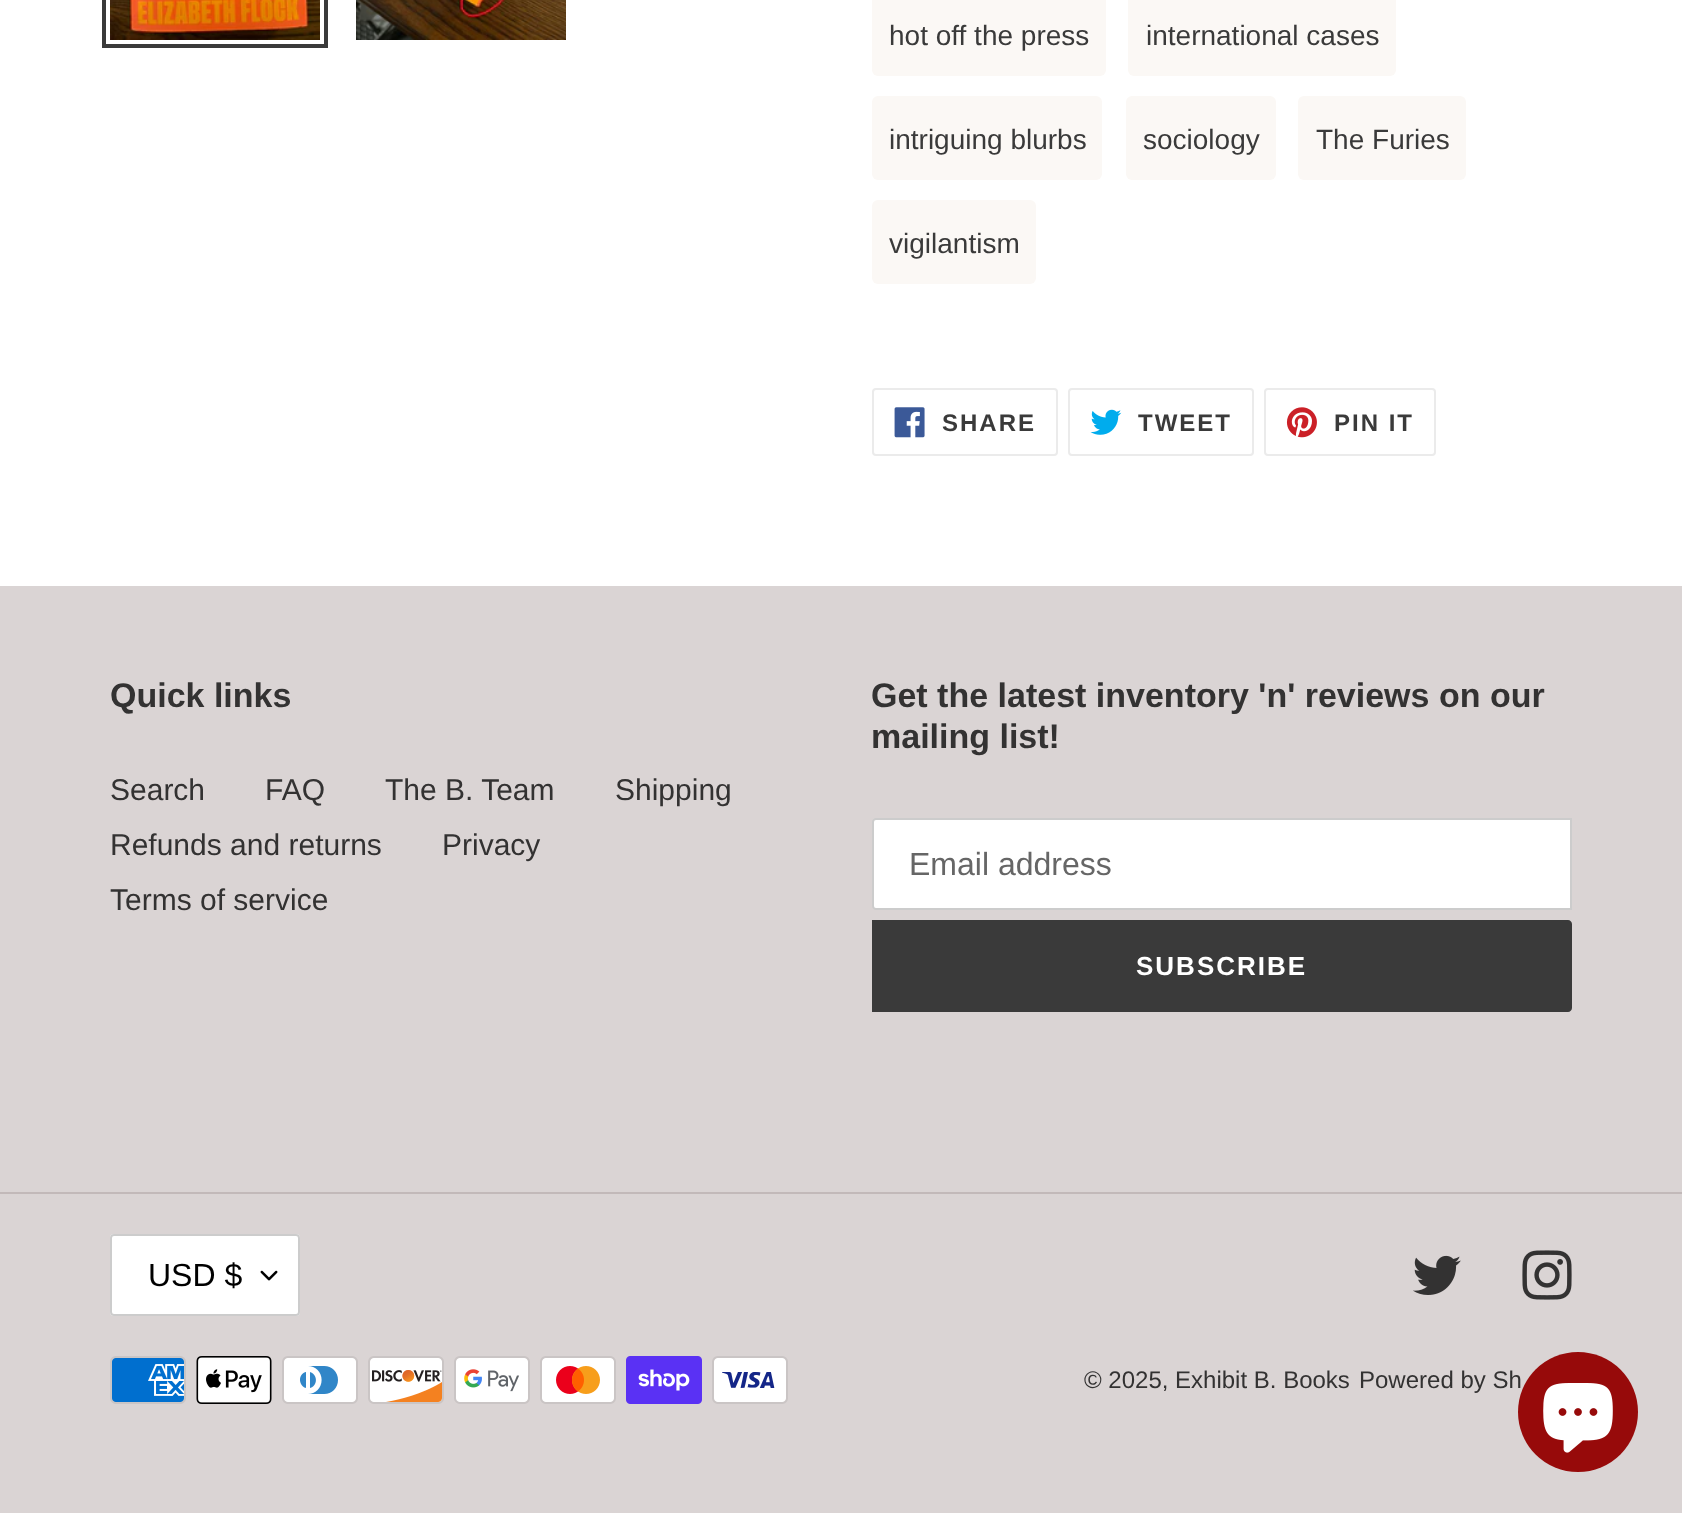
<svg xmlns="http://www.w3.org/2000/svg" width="1682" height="1513">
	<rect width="100%" height="100%" fill="#FFFFFF" />
	<rect x="104" y="-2" width="222" height="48" fill="none" stroke="#3A3A3A" stroke-width="4" />
	<image x="110" y="0" width="210" height="40" href="assets/img1.png" />
	<image x="356" y="0" width="210" height="40" href="assets/img2.png" />
	<rect x="872" y="-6" width="234" height="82" rx="6" fill="#FBF8F5" />
	<text x="889" y="45" font-family="Liberation Sans" font-size="28" fill="#3A3A3A">hot off the press</text>
	<rect x="1128" y="-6" width="268" height="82" rx="6" fill="#FBF8F5" />
	<text x="1146" y="45" font-family="Liberation Sans" font-size="28" fill="#3A3A3A">international cases</text>
	<rect x="872" y="96" width="230" height="84" rx="6" fill="#FBF8F5" />
	<text x="889" y="149" font-family="Liberation Sans" font-size="28" fill="#3A3A3A">intriguing blurbs</text>
	<rect x="1126" y="96" width="150" height="84" rx="6" fill="#FBF8F5" />
	<text x="1143" y="149" font-family="Liberation Sans" font-size="28" fill="#3A3A3A">sociology</text>
	<rect x="1298" y="96" width="168" height="84" rx="6" fill="#FBF8F5" />
	<text x="1316" y="149" font-family="Liberation Sans" font-size="28" fill="#3A3A3A">The Furies</text>
	<rect x="872" y="200" width="164" height="84" rx="6" fill="#FBF8F5" />
	<text x="889" y="253" font-family="Liberation Sans" font-size="28" fill="#3A3A3A">vigilantism</text>
	<rect x="873" y="389" width="184" height="66" rx="3" fill="none" stroke="#EBEBEB" stroke-width="2" />
	<image x="894" y="407" width="31" height="31" href="assets/img3.png" />
	<text x="942" y="431" font-family="Liberation Sans" font-size="24" font-weight="700" letter-spacing="2" fill="#3A3A3A">SHARE</text>
	<rect x="1069" y="389" width="184" height="66" rx="3" fill="none" stroke="#EBEBEB" stroke-width="2" />
	<image x="1090" y="409" width="32" height="26" href="assets/img4.png" />
	<text x="1138" y="431" font-family="Liberation Sans" font-size="24" font-weight="700" letter-spacing="2" fill="#3A3A3A">TWEET</text>
	<rect x="1265" y="389" width="170" height="66" rx="3" fill="none" stroke="#EBEBEB" stroke-width="2" />
	<image x="1286" y="407" width="31" height="31" href="assets/img5.png" />
	<text x="1334" y="431" font-family="Liberation Sans" font-size="24" font-weight="700" letter-spacing="2" fill="#3A3A3A">PIN IT</text>
	<rect x="0" y="586" width="1682" height="927" fill="#DAD4D4" />
	<text x="110" y="707" font-family="Liberation Sans" font-size="34" font-weight="700" fill="#333232">Quick links</text>
	<g font-family="Liberation Sans" font-size="30" fill="#333232">
		<text x="110" y="800">Search</text>
		<text x="265" y="800">FAQ</text>
		<text x="385" y="800">The B. Team</text>
		<text x="615" y="800">Shipping</text>
		<text x="110" y="855">Refunds and returns</text>
		<text x="442" y="855">Privacy</text>
		<text x="110" y="910">Terms of service</text>
	</g>
	<g font-family="Liberation Sans" font-size="34" font-weight="700" fill="#333232">
		<text x="871" y="707">Get the latest inventory 'n' reviews on our</text>
		<text x="871" y="748">mailing list!</text>
	</g>
	<path d="M876 819H1571V909H876C874.5 909 873 907.5 873 906V822C873 820.5 874.5 819 876 819Z" fill="#FFFFFF" stroke="#CCCCCC" stroke-width="2" />
	<text x="909" y="875" font-family="Liberation Sans" font-size="32" fill="#666666">Email address</text>
	<path d="M872 920H1568C1570 920 1572 922 1572 924V1008C1572 1010 1570 1012 1568 1012H872Z" fill="#3A3A3A" />
	<text x="1136" y="975" font-family="Liberation Sans" font-size="26" font-weight="700" letter-spacing="2" fill="#FFFFFF">SUBSCRIBE</text>
	<rect x="0" y="1192" width="1682" height="2" fill="#C2B9B9" />
	<rect x="110" y="1234" width="190" height="82" rx="4" fill="#FFFFFF" />
	<image x="260" y="1270" width="18" height="11" href="assets/img6.png" />
	<rect x="111" y="1235" width="188" height="80" rx="3" fill="none" stroke="#CCCCCC" stroke-width="2" />
	<text x="148" y="1286" font-family="Liberation Sans" font-size="32" fill="#000000">USD $</text>
	<image x="1413" y="1255" width="48" height="40" href="assets/img7.png" />
	<image x="1522" y="1250" width="50" height="50" href="assets/img8.png" />
	<image x="110" y="1356" width="76" height="48" href="assets/img9.png" />
	<image x="196" y="1356" width="76" height="48" href="assets/img10.png" />
	<image x="282" y="1356" width="76" height="48" href="assets/img11.png" />
	<image x="368" y="1356" width="76" height="48" href="assets/img12.png" />
	<image x="454" y="1356" width="76" height="48" href="assets/img13.png" />
	<image x="540" y="1356" width="76" height="48" href="assets/img14.png" />
	<image x="626" y="1356" width="76" height="48" href="assets/img15.png" />
	<image x="712" y="1356" width="76" height="48" href="assets/img16.png" />
	<g font-family="Liberation Sans" font-size="24" fill="#333232">
		<text x="1084" y="1388">© 2025, Exhibit B. Books</text>
		<text x="1359" y="1388">Powered by Sh</text>
	</g>
	<circle cx="1578" cy="1412" r="60" fill="#970A0A" />
	<image x="1543" y="1383" width="70" height="70" href="assets/img17.png" />
</svg>
